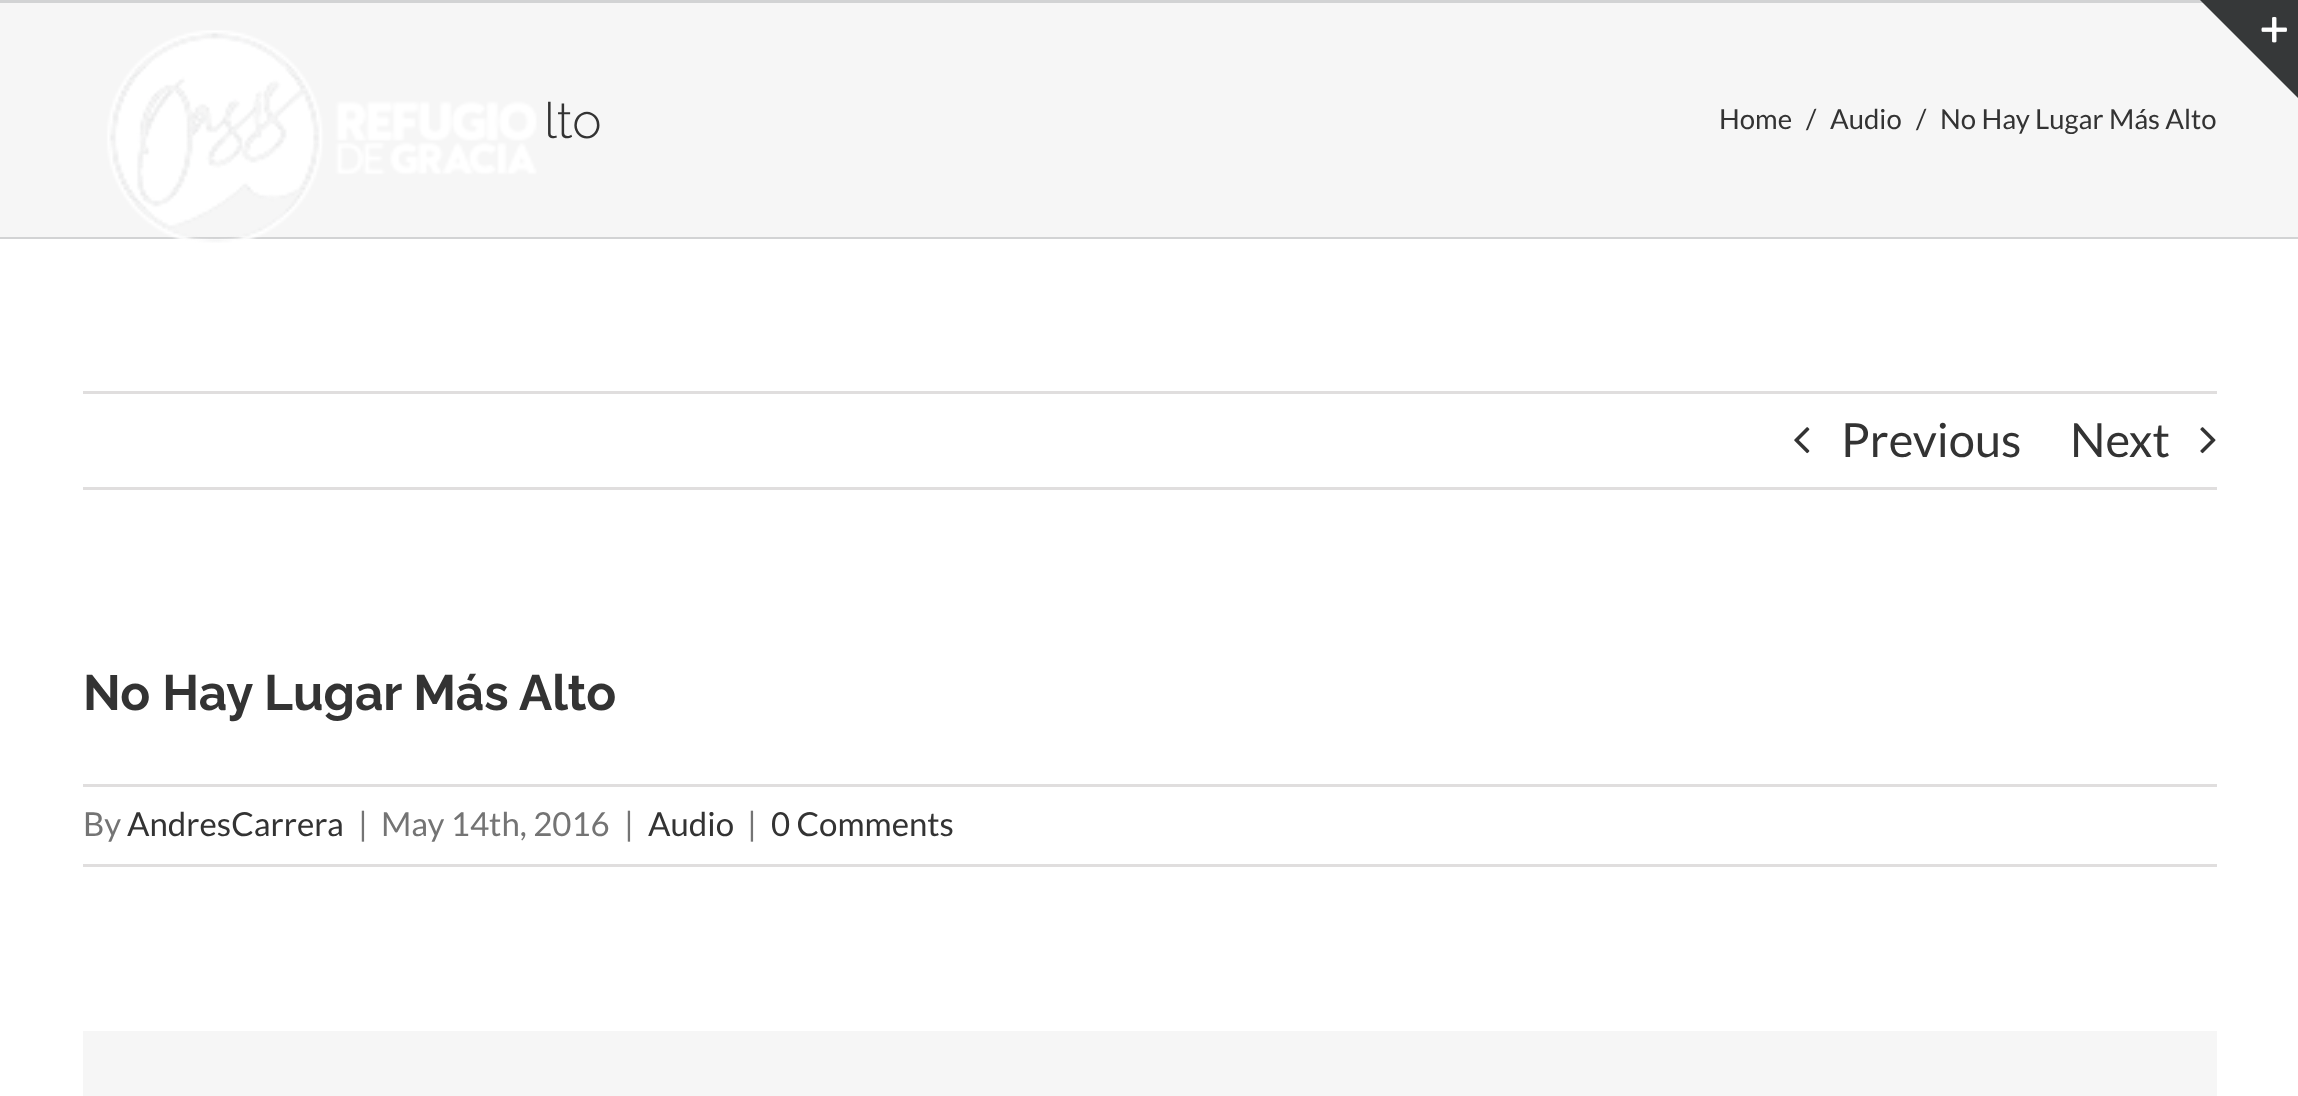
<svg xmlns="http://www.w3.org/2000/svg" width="2298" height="1096">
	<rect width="100%" height="100%" fill="#F6F6F6" />
	<rect x="0" y="237" width="2298" height="2" fill="#D2D3D4" />
	<rect x="0" y="239" width="2298" height="857" fill="#FFFFFF" />
	<image x="106" y="30" width="432" height="213" href="assets/img1.png" />
	<rect x="0" y="0" width="2203" height="3" fill="#D2D3D4" />
	<text x="544" y="138" font-family="Raleway" font-size="49.5" font-weight="300" fill="#333333">lto</text>
	<g font-family="Lato" font-size="27.5" fill="#333333">
		<text x="1719" y="129">Home</text>
		<text x="1806" y="129">/</text>
		<text x="1830" y="129">Audio</text>
		<text x="1916" y="129">/</text>
		<text x="1940" y="129">No Hay Lugar Más Alto</text>
	</g>
	<path d="M2200 0H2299V99Z" fill="#363839" />
	<image x="2261" y="16" width="26" height="27" href="assets/img2.png" />
	<rect x="83" y="391" width="2134" height="3" fill="#E0DEDE" />
	<rect x="83" y="487" width="2134" height="3" fill="#E0DEDE" />
	<image x="1794" y="427" width="16" height="27" href="assets/img3.png" />
	<g font-family="Lato" font-size="47" fill="#333333">
		<text x="1841" y="457">Previous</text>
		<text x="2070" y="457">Next</text>
	</g>
	<image x="2200" y="427" width="16" height="27" href="assets/img4.png" />
	<text x="83" y="710" font-family="Raleway" font-size="49.5" font-weight="700" fill="#333333">No Hay Lugar Más Alto</text>
	<rect x="83" y="784" width="2134" height="3" fill="#E0DEDE" />
	<rect x="83" y="864" width="2134" height="3" fill="#E0DEDE" />
	<text x="83" y="836" font-family="Lato" font-size="33" fill="#747474">By</text>
	<text x="127" y="836" font-family="Lato" font-size="33" fill="#333333">AndresCarrera</text>
	<g font-family="Lato" font-size="33" fill="#747474">
		<text x="358" y="836">|</text>
		<text x="381" y="836">May 14th, 2016</text>
		<text x="624" y="836">|</text>
	</g>
	<text x="648" y="836" font-family="Lato" font-size="33" fill="#333333">Audio</text>
	<text x="747" y="836" font-family="Lato" font-size="33" fill="#747474">|</text>
	<text x="771" y="836" font-family="Lato" font-size="33" fill="#333333">0 Comments</text>
	<rect x="83" y="1031" width="2134" height="65" fill="#F6F6F6" />
</svg>
